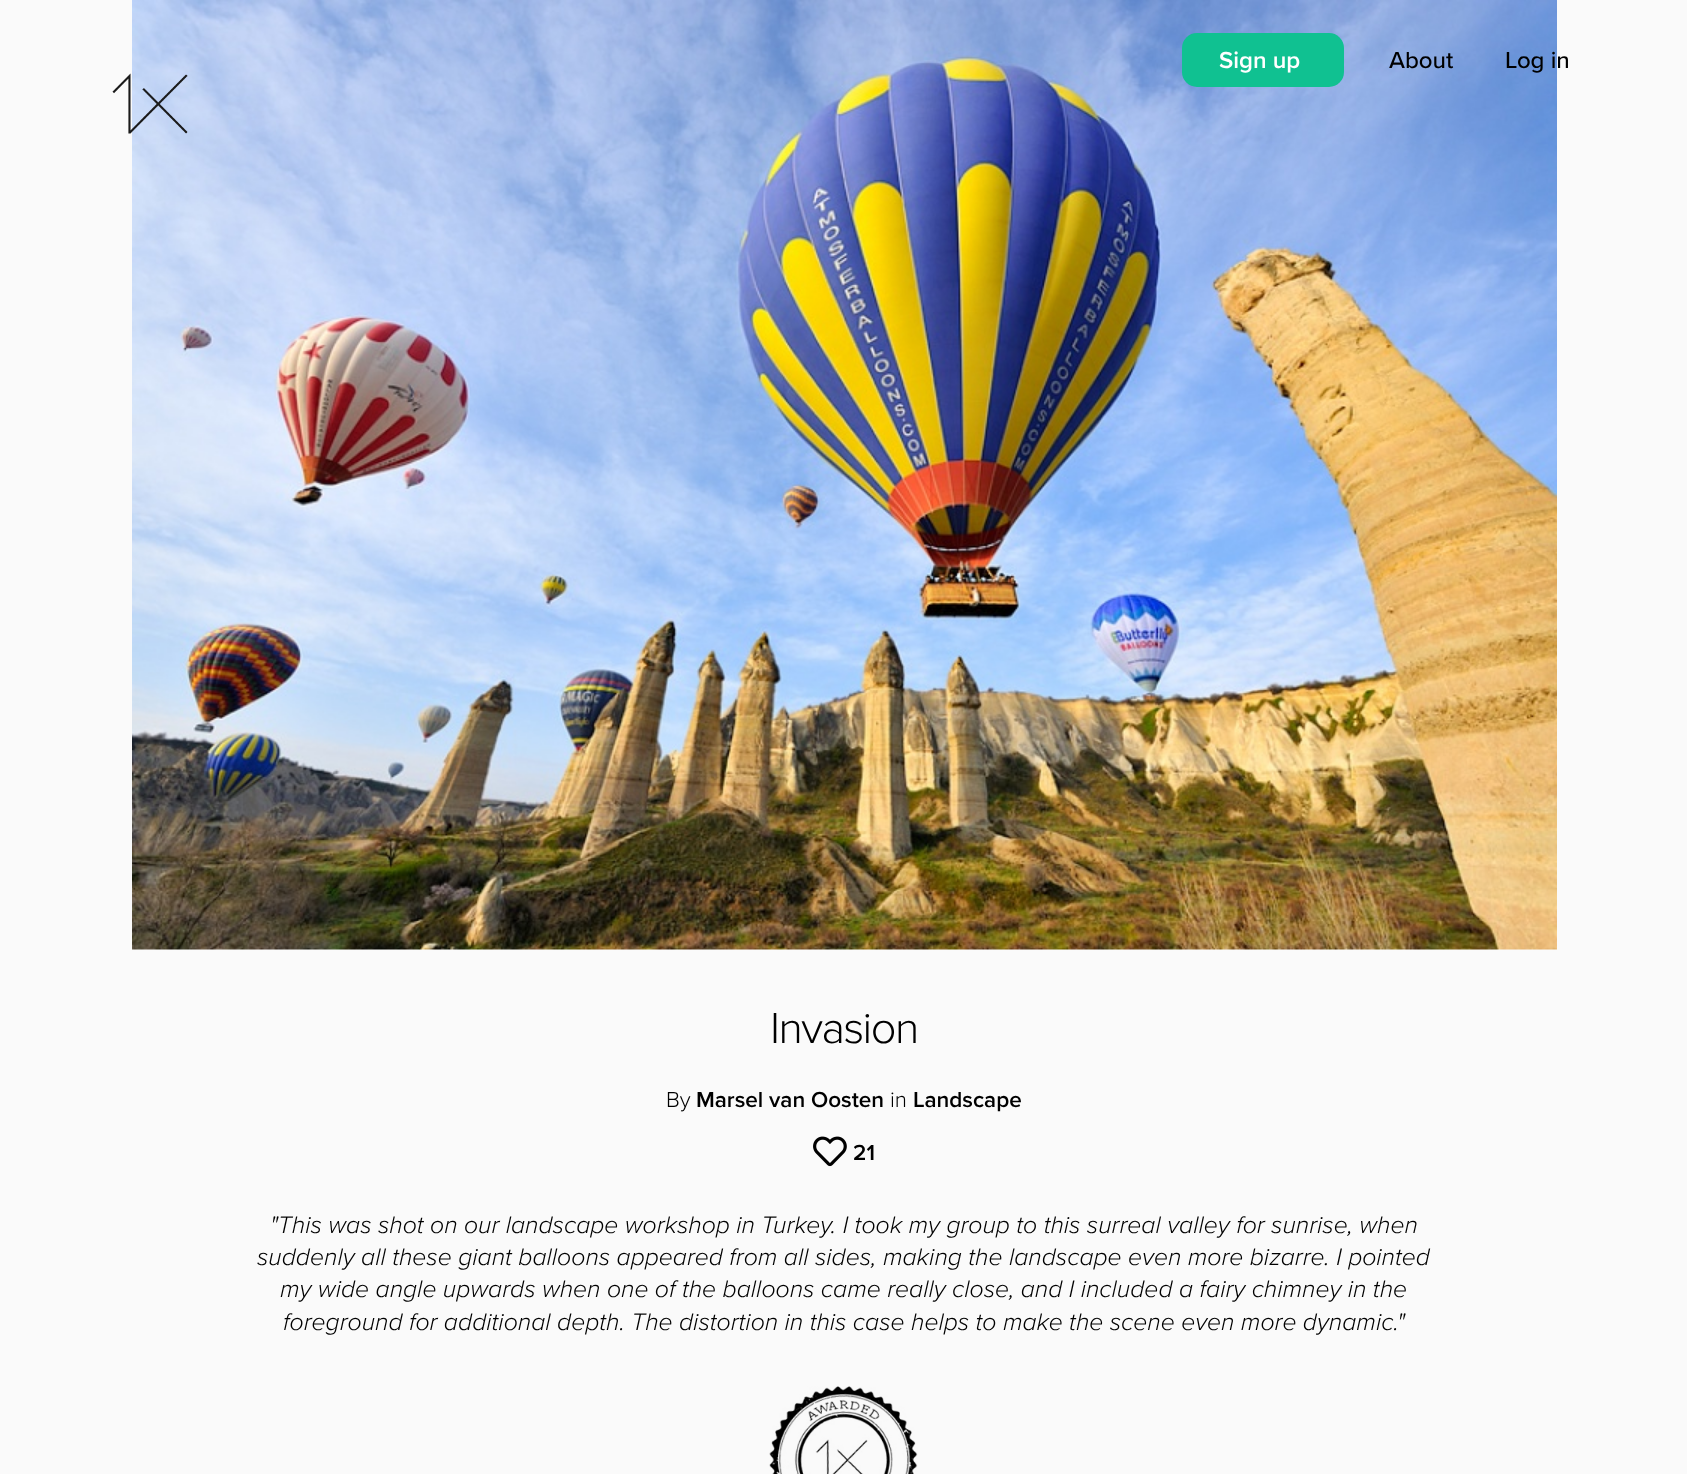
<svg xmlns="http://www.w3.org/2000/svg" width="1687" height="1474">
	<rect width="100%" height="100%" fill="#FAFAFA" />
	<image x="132" y="0" width="1425" height="950" href="assets/img2.png" />
	<rect x="1182" y="33" width="162" height="54" rx="15" fill="#10C191" />
	<text x="1219" y="68" font-family="Proxima Nova" font-size="24" font-weight="600" fill="#FFFFFF">Sign up</text>
	<g font-family="Proxima Nova" font-size="24" font-weight="500" fill="#000000">
		<text x="1389" y="68">About</text>
		<text x="1505" y="68">Log in</text>
	</g>
	<image x="112" y="73" width="76" height="61" href="assets/img1.png" />
	<text x="770" y="1043" font-family="Proxima Nova" font-size="45" font-weight="300" letter-spacing="-1.5" fill="#000000">Invasion</text>
	<text x="666" y="1107" font-family="Proxima Nova" font-size="22.5" font-weight="300" fill="#000000">By</text>
	<text x="696" y="1107" font-family="Proxima Nova" font-size="22.5" font-weight="600" fill="#000000">Marsel van Oosten</text>
	<text x="890" y="1107" font-family="Proxima Nova" font-size="22.5" font-weight="300" fill="#000000">in</text>
	<text x="913" y="1107" font-family="Proxima Nova" font-size="22.5" font-weight="600" fill="#000000">Landscape</text>
	<image x="813" y="1136" width="34" height="31" href="assets/img3.png" />
	<text x="853" y="1160" font-family="Proxima Nova" font-size="22.5" font-weight="600" fill="#000000">21</text>
	<g font-family="Proxima Nova" font-size="24.75" font-weight="300" font-style="italic" fill="#000000">
		<text x="270" y="1233">"This was shot on our landscape workshop in Turkey. I took my group to this surreal valley for sunrise, when</text>
		<text x="257" y="1265">suddenly all these giant balloons appeared from all sides, making the landscape even more bizarre. I pointed</text>
		<text x="280" y="1297">my wide angle upwards when one of the balloons came really close, and I included a fairy chimney in the</text>
		<text x="283" y="1330">foreground for additional depth. The distortion in this case helps to make the scene even more dynamic."</text>
	</g>
	<image x="769" y="1386" width="149" height="88" href="assets/img4.png" />
</svg>
